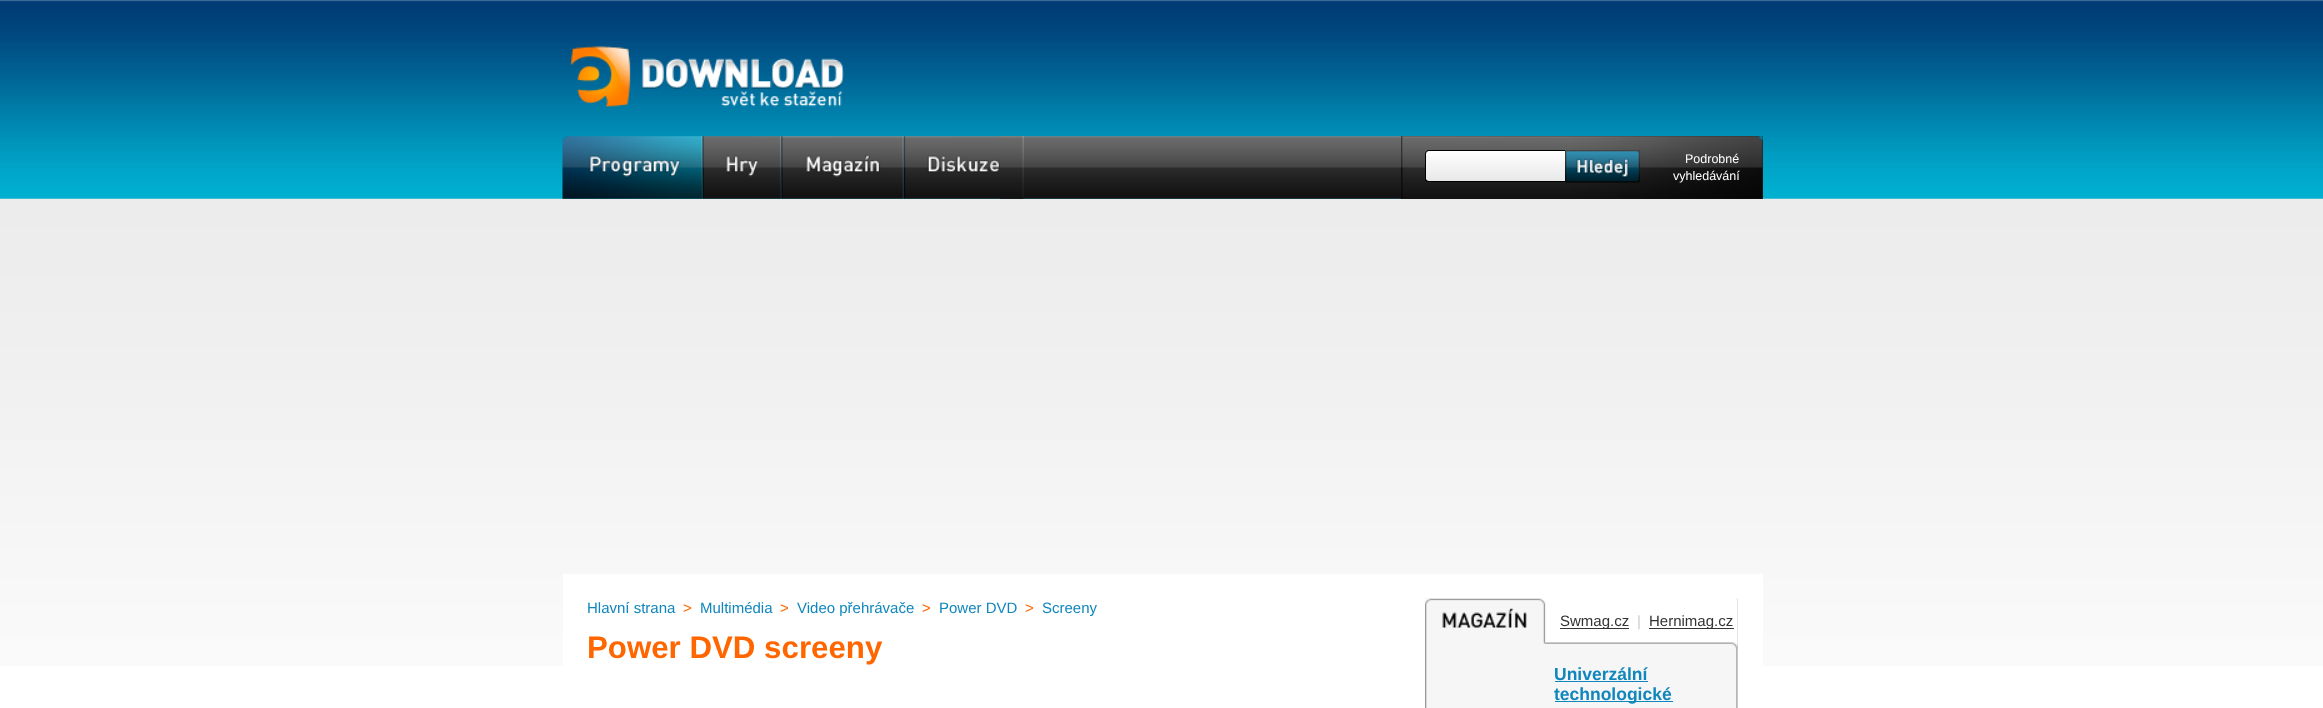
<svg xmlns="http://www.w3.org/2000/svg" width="2323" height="708">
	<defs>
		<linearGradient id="g1" gradientUnits="userSpaceOnUse" x1="1496" y1="151" x2="1496" y2="181"><stop offset="0" stop-color="#FFFFFF" /><stop offset="1" stop-color="#E8E8E8" /></linearGradient>
	</defs>
	<rect width="100%" height="100%" fill="#FFFFFF" />
	<image x="0" y="0" width="2323" height="666" href="assets/img1.png" />
	<image x="563" y="46" width="281" height="61" href="assets/img2.png" />
	<image x="1000" y="136" width="401" height="63" href="assets/img3.png" />
	<image x="562" y="136" width="141" height="63" href="assets/img4.png" />
	<image x="702" y="136" width="80" height="63" href="assets/img5.png" />
	<image x="781" y="136" width="123" height="63" href="assets/img6.png" />
	<image x="903" y="136" width="121" height="63" href="assets/img7.png" />
	<rect x="1401" y="136" width="362" height="63" fill="#1E1E1E" />
	<image x="1401" y="136" width="362" height="63" href="assets/img8.png" />
	<path d="M1428.5 151H1565V181H1428.5C1427 181 1426 180 1426 178.5V153.5C1426 152 1427 151 1428.5 151Z" fill="url(#g1)" />
	<path d="M1429 150H1565V182H1429C1427 182 1425 181 1425 179V154C1425 152 1427 150 1429 150ZM1429 151H1565V181H1429C1427 181 1426 180 1426 179V154C1426 152 1427 151 1429 151Z" fill="#000000" fill-rule="evenodd" />
	<image x="1565" y="150" width="75" height="33" href="assets/img9.png" />
	<g font-family="Liberation Sans" font-size="12.5" fill="#FFFFFF">
		<text x="1685" y="163">Podrobné</text>
		<text x="1673" y="180">vyhledávání</text>
	</g>
	<rect x="563" y="574" width="1200" height="92" fill="#FFFFFF" />
	<text x="587" y="613" font-family="Liberation Sans" font-size="15" fill="#1086BD">Hlavní strana</text>
	<text x="683" y="613" font-family="Liberation Sans" font-size="15" fill="#FF6600">&gt;</text>
	<text x="700" y="613" font-family="Liberation Sans" font-size="15" fill="#1086BD">Multimédia</text>
	<text x="780" y="613" font-family="Liberation Sans" font-size="15" fill="#FF6600">&gt;</text>
	<text x="797" y="613" font-family="Liberation Sans" font-size="15" fill="#1086BD">Video přehrávače</text>
	<text x="922" y="613" font-family="Liberation Sans" font-size="15" fill="#FF6600">&gt;</text>
	<text x="939" y="613" font-family="Liberation Sans" font-size="15" fill="#1086BD">Power DVD</text>
	<text x="1025" y="613" font-family="Liberation Sans" font-size="15" fill="#FF6600">&gt;</text>
	<text x="1042" y="613" font-family="Liberation Sans" font-size="15" fill="#1086BD">Screeny</text>
	<text x="587" y="658" font-family="Liberation Sans" font-size="31.25" font-weight="700" fill="#FF6600">Power DVD screeny</text>
	<rect x="1737" y="599" width="1" height="109" fill="#F6F6F6" />
	<image x="1425" y="598" width="313" height="110" href="assets/img10.png" />
	<image x="1425" y="598" width="313" height="51" href="assets/img11.png" />
	<rect x="1560" y="628" width="69" height="1" fill="#333333" />
	<text x="1560" y="626" font-family="Liberation Sans" font-size="15" fill="#333333">Swmag.cz</text>
	<text x="1637" y="626" font-family="Liberation Sans" font-size="15" fill="#CCCCCC">|</text>
	<rect x="1649" y="628" width="85" height="1" fill="#333333" />
	<text x="1649" y="626" font-family="Liberation Sans" font-size="15" fill="#333333">Hernimag.cz</text>
	<text x="1554" y="680" font-family="Liberation Sans" font-size="17.5" font-weight="700" fill="#1086BD">Univerzální</text>
	<rect x="1555" y="681" width="93" height="1" fill="#1086BD" />
	<rect x="1555" y="701" width="118" height="1" fill="#1086BD" />
	<text x="1554" y="700" font-family="Liberation Sans" font-size="17.5" font-weight="700" fill="#1086BD">technologické</text>
</svg>
